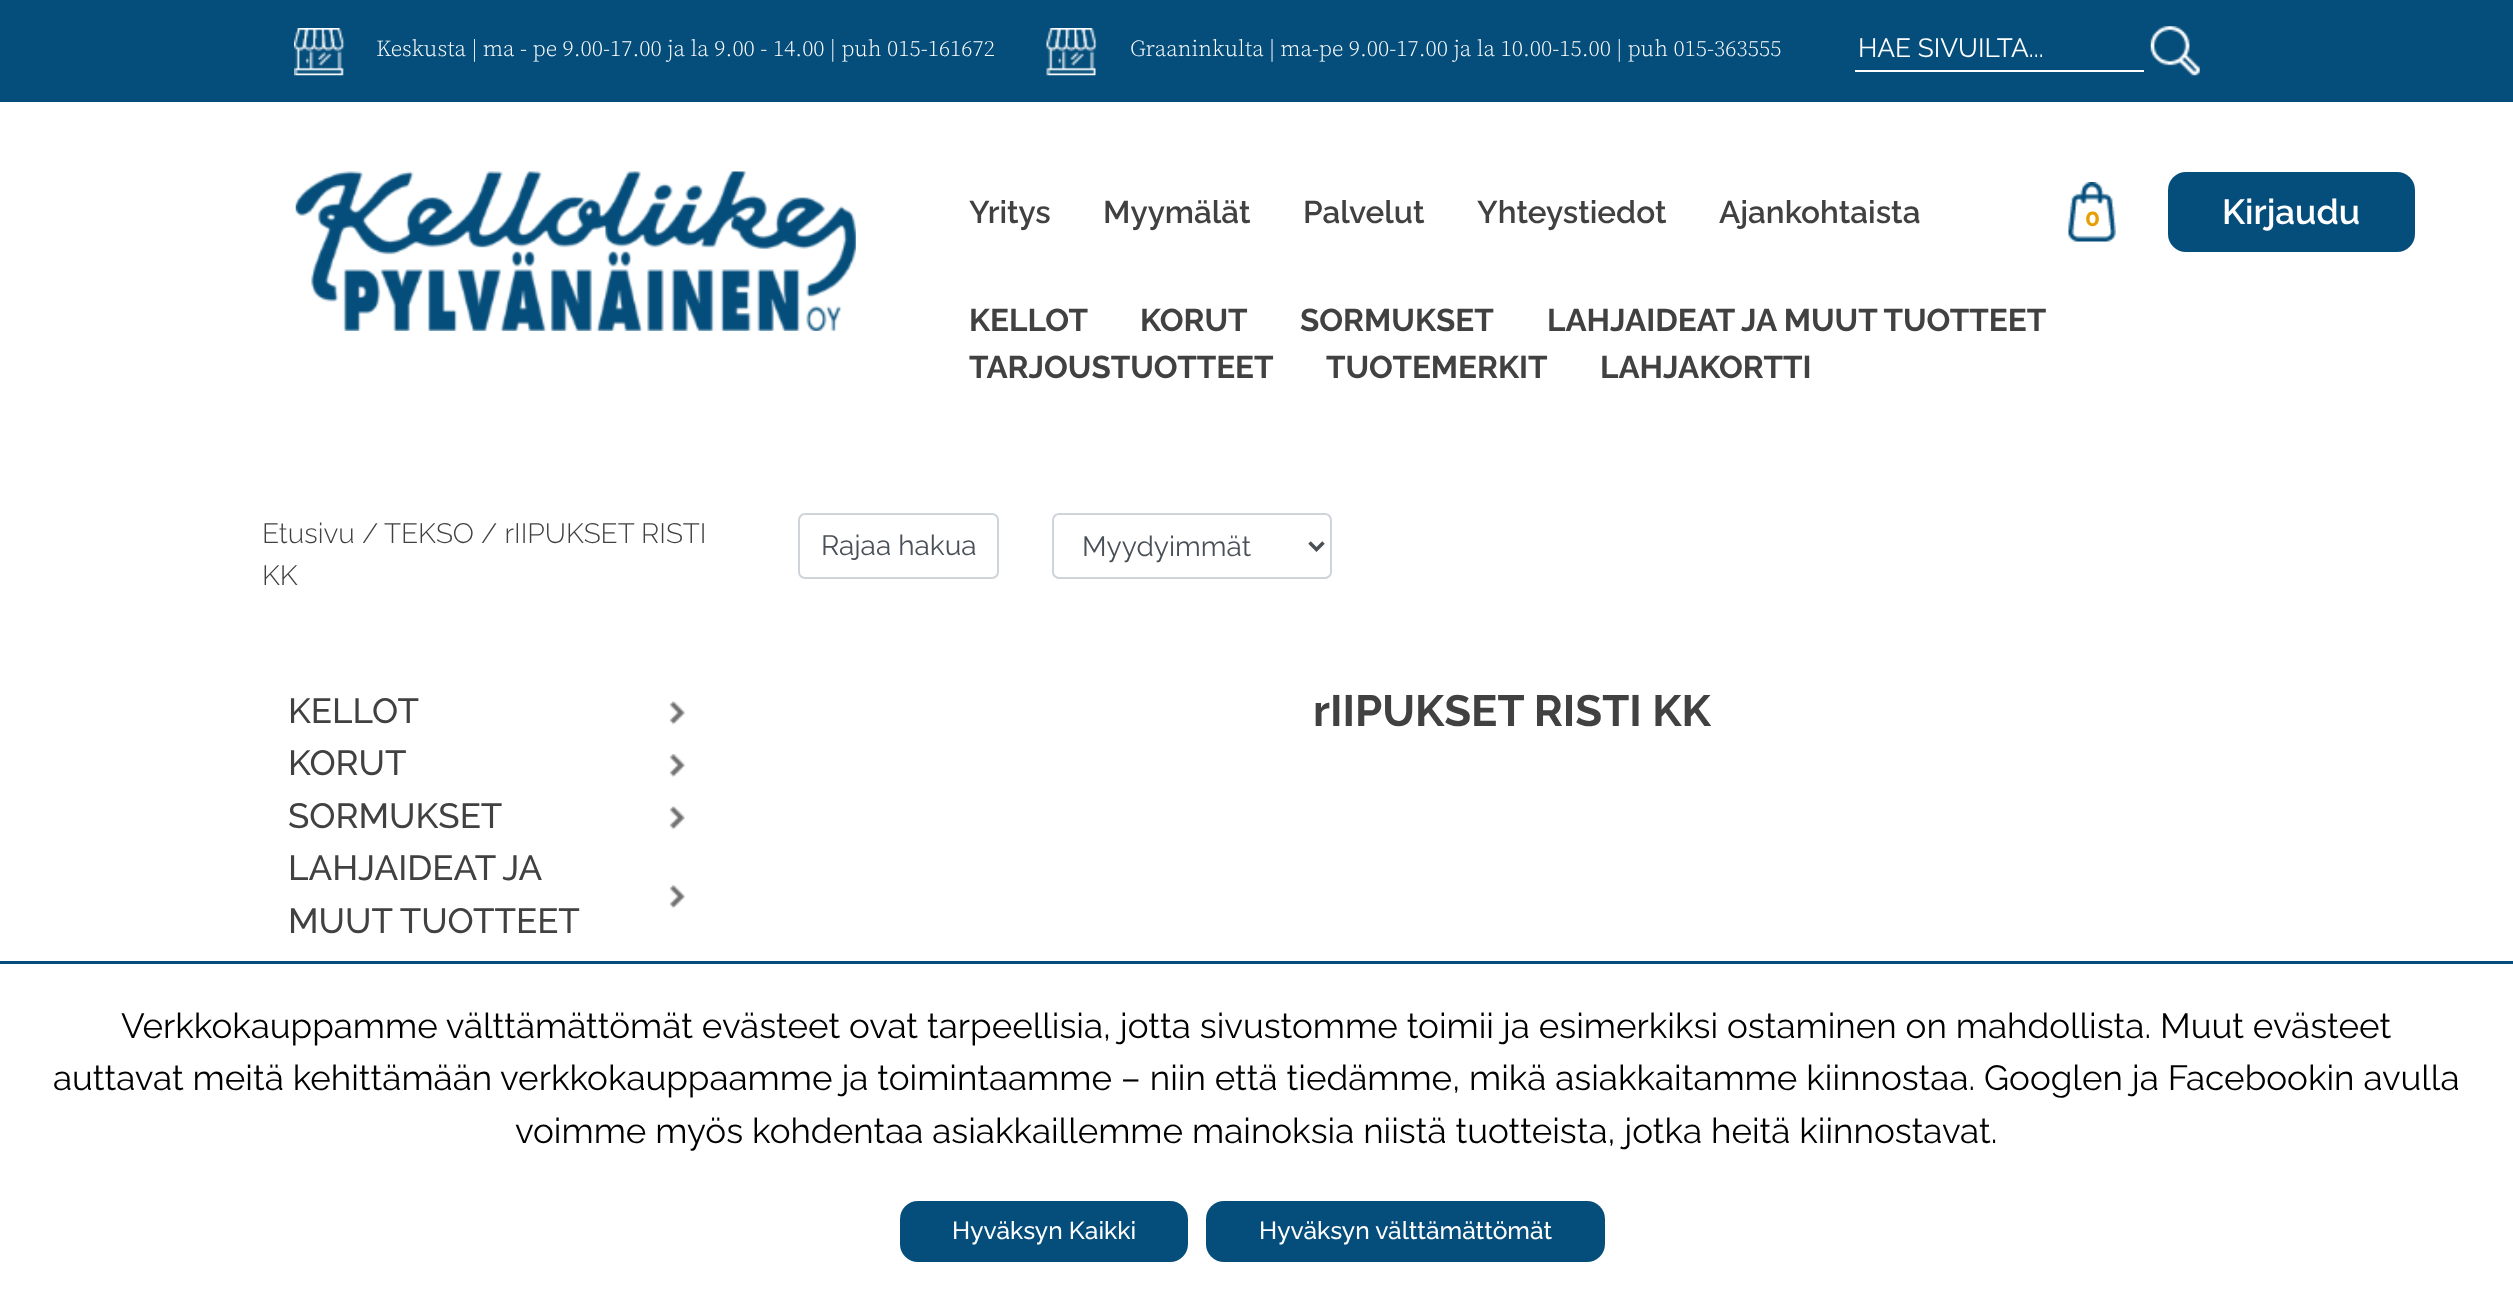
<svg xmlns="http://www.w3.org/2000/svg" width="2513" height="1304">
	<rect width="100%" height="100%" fill="#FFFFFF" />
	<rect x="0" y="0" width="2513" height="102" fill="#054E7B" />
	<image x="294" y="28" width="51" height="48" href="assets/img1.png" />
	<text x="376" y="56" font-family="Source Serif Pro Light" font-size="22.75" font-weight="300" fill="#FFFFFF">Keskusta | ma - pe 9.00-17.00 ja la 9.00 - 14.00 | puh 015-161672</text>
	<image x="1046" y="28" width="51" height="48" href="assets/img2.png" />
	<text x="1130" y="56" font-family="Source Serif Pro Light" font-size="22.75" font-weight="300" fill="#FFFFFF">Graaninkulta | ma-pe 9.00-17.00 ja la 10.00-15.00 | puh 015-363555</text>
	<rect x="1855" y="70" width="289" height="2" fill="#FFFFFF" />
	<text x="1858" y="57" font-family="Raleway" font-size="26.25" fill="#FFFFFF">HAE SIVUILTA...</text>
	<image x="2150" y="26" width="50" height="50" href="assets/img3.png" />
	<image x="295" y="171" width="561" height="160" href="assets/img4.png" />
	<g font-family="Raleway" font-size="31.5" font-weight="600" fill="#414141">
		<text x="969" y="223">Yritys</text>
		<text x="1103" y="223">Myymälät</text>
		<text x="1303" y="223">Palvelut</text>
		<text x="1477" y="223">Yhteystiedot</text>
		<text x="1719" y="223">Ajankohtaista</text>
	</g>
	<image x="2068" y="182" width="48" height="60" href="assets/img5.png" />
	<text x="2085" y="226" font-family="Raleway" font-size="24.5" font-weight="700" fill="#E89E00">0</text>
	<rect x="2168" y="172" width="247" height="80" rx="18" fill="#054E7B" />
	<text x="2222" y="224" font-family="Raleway" font-size="35" font-weight="600" fill="#FFFFFF">Kirjaudu</text>
	<g font-family="Raleway" font-size="31.5" font-weight="700" fill="#414141">
		<text x="969" y="331">KELLOT</text>
		<text x="1140" y="331">KORUT</text>
		<text x="1300" y="331">SORMUKSET</text>
		<text x="1547" y="331">LAHJAIDEAT JA MUUT TUOTTEET</text>
		<text x="969" y="378">TARJOUSTUOTTEET</text>
		<text x="1326" y="378">TUOTEMERKIT</text>
		<text x="1600" y="378">LAHJAKORTTI</text>
	</g>
	<g font-family="Raleway" font-size="28" font-weight="300" fill="#414141">
		<text x="262" y="543">Etusivu /</text>
		<text x="384" y="543">TEKSO / rIIPUKSET RISTI</text>
		<text x="262" y="585">KK</text>
	</g>
	<rect x="799" y="514" width="199" height="64" rx="6" fill="none" stroke="#CED4DA" stroke-width="2" />
	<text x="821" y="555" font-family="Raleway" font-size="28" fill="#495057">Rajaa hakua</text>
	<rect x="1053" y="514" width="278" height="64" rx="6" fill="none" stroke="#CED4DA" stroke-width="2" />
	<path d="M1309.5 542.5L1316.5 549.5L1323.5 542.5" fill="none" stroke="#495057" stroke-width="3.5" />
	<text x="1082" y="556" font-family="Raleway" font-size="28" fill="#495057">Myydyimmät</text>
	<text x="288" y="723" font-family="Raleway" font-size="35" font-weight="500" fill="#414141">KELLOT</text>
	<image x="670" y="701" width="15" height="24" href="assets/img6.png" />
	<text x="288" y="775" font-family="Raleway" font-size="35" font-weight="500" fill="#414141">KORUT</text>
	<image x="670" y="754" width="15" height="23" href="assets/img7.png" />
	<text x="288" y="828" font-family="Raleway" font-size="35" font-weight="500" fill="#414141">SORMUKSET</text>
	<image x="670" y="806" width="15" height="24" href="assets/img6.png" />
	<g font-family="Raleway" font-size="35" font-weight="500" fill="#414141">
		<text x="288" y="880" word-spacing="-1">LAHJAIDEAT JA</text>
		<text x="288" y="933">MUUT TUOTTEET</text>
	</g>
	<image x="670" y="885" width="15" height="24" href="assets/img8.png" />
	<text x="1313" y="726" font-family="Raleway" font-size="43.75" font-weight="700" fill="#414141">rIIPUKSET RISTI KK</text>
	<rect x="0" y="961" width="2513" height="3" fill="#054E7B" />
	<g font-family="Raleway" font-size="35" fill="#000000">
		<text x="121" y="1038">Verkkokauppamme välttämättömät evästeet ovat tarpeellisia, jotta sivustomme toimii ja esimerkiksi ostaminen on mahdollista. Muut evästeet</text>
		<text x="53" y="1090">auttavat meitä kehittämään verkkokauppaamme ja toimintaamme – niin että tiedämme, mikä asiakkaitamme kiinnostaa. Googlen ja Facebookin avulla</text>
		<text x="515" y="1143">voimme myös kohdentaa asiakkaillemme mainoksia niistä tuotteista, jotka heitä kiinnostavat.</text>
	</g>
	<rect x="900" y="1201" width="288" height="61" rx="18" fill="#054E7B" />
	<text x="952" y="1239" font-family="Raleway" font-size="24.5" font-weight="500" fill="#FFFFFF">Hyväksyn Kaikki</text>
	<rect x="1206" y="1201" width="399" height="61" rx="18" fill="#054E7B" />
	<text x="1259" y="1239" font-family="Raleway" font-size="24.5" font-weight="500" fill="#FFFFFF">Hyväksyn välttämättömät</text>
</svg>
